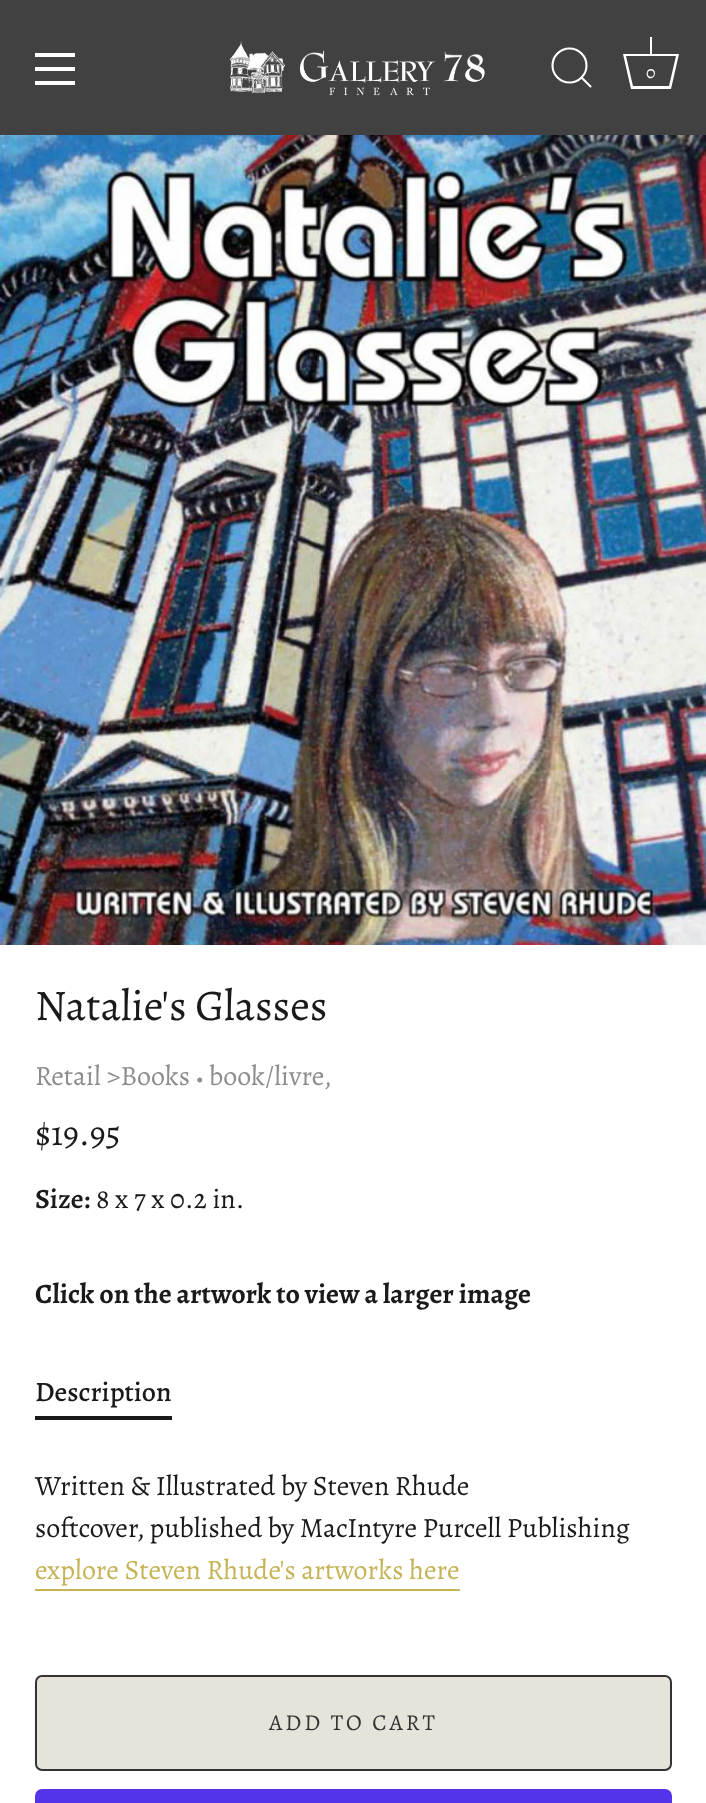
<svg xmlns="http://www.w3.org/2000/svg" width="706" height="1803">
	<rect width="100%" height="100%" fill="#FFFFFF" />
	<rect x="0" y="0" width="706" height="135" fill="#414141" />
	<rect x="35" y="53" width="40" height="4" fill="#FFFFFF" />
	<rect x="35" y="67" width="40" height="4" fill="#FFFFFF" />
	<rect x="35" y="81" width="40" height="4" fill="#FFFFFF" />
	<image x="229" y="41" width="256" height="55" href="assets/img1.png" />
	<circle cx="569.5" cy="65.5" r="17" fill="none" stroke="#FFFFFF" stroke-width="2.1" />
	<path d="M590.5 86.5L581.5 77.5" fill="none" stroke="#FFFFFF" stroke-width="2.1" stroke-linecap="round" stroke-linejoin="round" />
	<rect x="650" y="37" width="2" height="17" fill="#FFFFFF" />
	<path d="M676 56L669 86H633L626 56H676M679 54H623L631 89H671Z" fill="#FFFFFF" />
	<text x="646" y="78" font-family="Alegreya" font-size="18" fill="#FFFFFF">0</text>
	<image x="0" y="135" width="706" height="810" href="assets/img2.png" />
	<text x="35" y="1020" font-family="Alegreya" font-size="43.75" fill="#1A1A1A">Natalie's Glasses</text>
	<text x="35" y="1085" font-family="Alegreya" font-size="28" fill="#8D8D8D">Retail &gt;Books</text>
	<text x="196" y="1085" font-family="Alegreya" font-size="22" fill="#8D8D8D">•</text>
	<text x="209" y="1085" font-family="Alegreya" font-size="28" fill="#8D8D8D">book/livre,</text>
	<text x="35" y="1145" font-family="Alegreya" font-size="35" fill="#1A1A1A">$19.95</text>
	<text x="35" y="1208" font-family="Alegreya" font-size="28" font-weight="600" fill="#1A1A1A">Size:</text>
	<text x="96" y="1208" font-family="Alegreya" font-size="28" fill="#1A1A1A">8 x 7 x 0.2 in.</text>
	<text x="35" y="1303" font-family="Alegreya" font-size="28" font-weight="700" fill="#1A1A1A">Click on the artwork to view a larger image</text>
	<text x="35" y="1401" font-family="Alegreya" font-size="28" font-weight="500" fill="#1A1A1A">Description</text>
	<rect x="35" y="1416" width="137" height="4" fill="#1A1A1A" />
	<g font-family="Alegreya" font-size="28" fill="#1A1A1A">
		<text x="35" y="1495">Written &amp; Illustrated by Steven Rhude</text>
		<text x="35" y="1537">softcover, published by MacIntyre Purcell Publishing</text>
	</g>
	<text x="35" y="1579" font-family="Alegreya" font-size="28" fill="#C5B358">explore Steven Rhude's artworks here</text>
	<rect x="35" y="1589" width="425" height="2" fill="#C5B358" />
	<rect x="36" y="1676" width="635" height="94" rx="6" fill="#E5E3DA" stroke="#333333" stroke-width="2" />
	<text x="269" y="1730" font-family="Alegreya" font-size="22.75" letter-spacing="3" fill="#333333">ADD TO CART</text>
	<rect x="35" y="1789" width="637" height="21" rx="7" fill="#5433EB" />
</svg>
